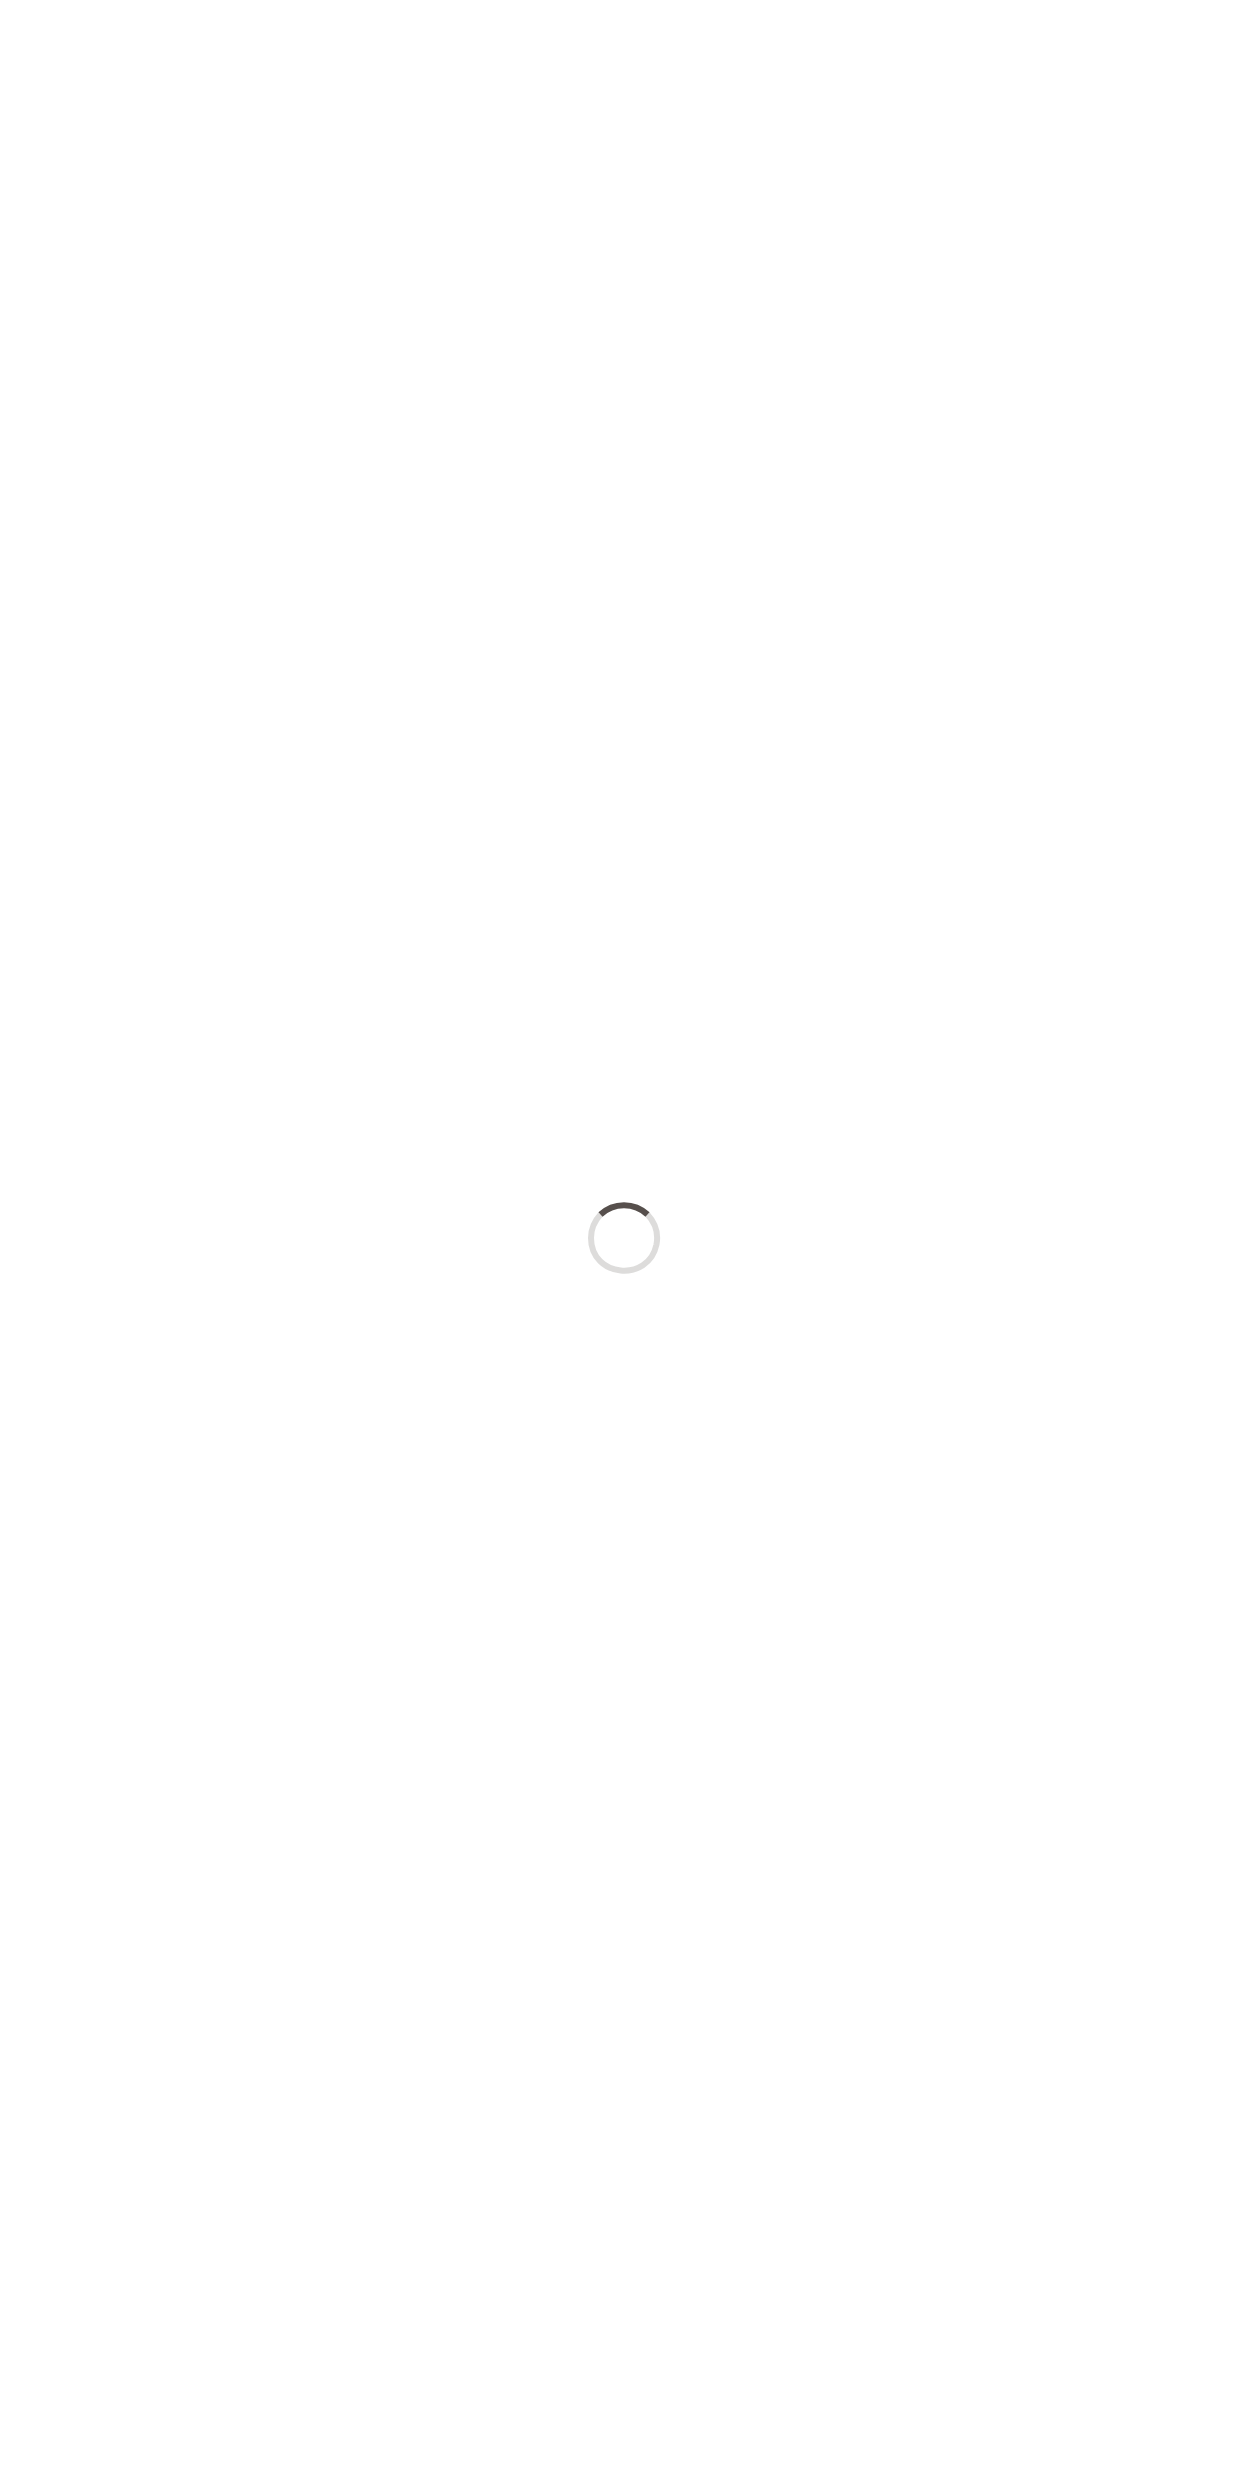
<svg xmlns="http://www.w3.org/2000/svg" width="1246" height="2474">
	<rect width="100%" height="100%" fill="#FFFFFF" />
	<path d="M600.5 1214.5C613.5 1202 634.5 1202 647.5 1214.5" fill="none" stroke="#564F4C" stroke-width="6" />
	<path d="M647.5 1214.5C655 1222.5 658.5 1233.5 656.5 1244.5C648.5 1283 591 1277.5 591 1238C591 1229.5 594.5 1221 600.5 1214.5" fill="none" stroke="#564F4C" stroke-opacity="0.2" stroke-width="6" />
</svg>
